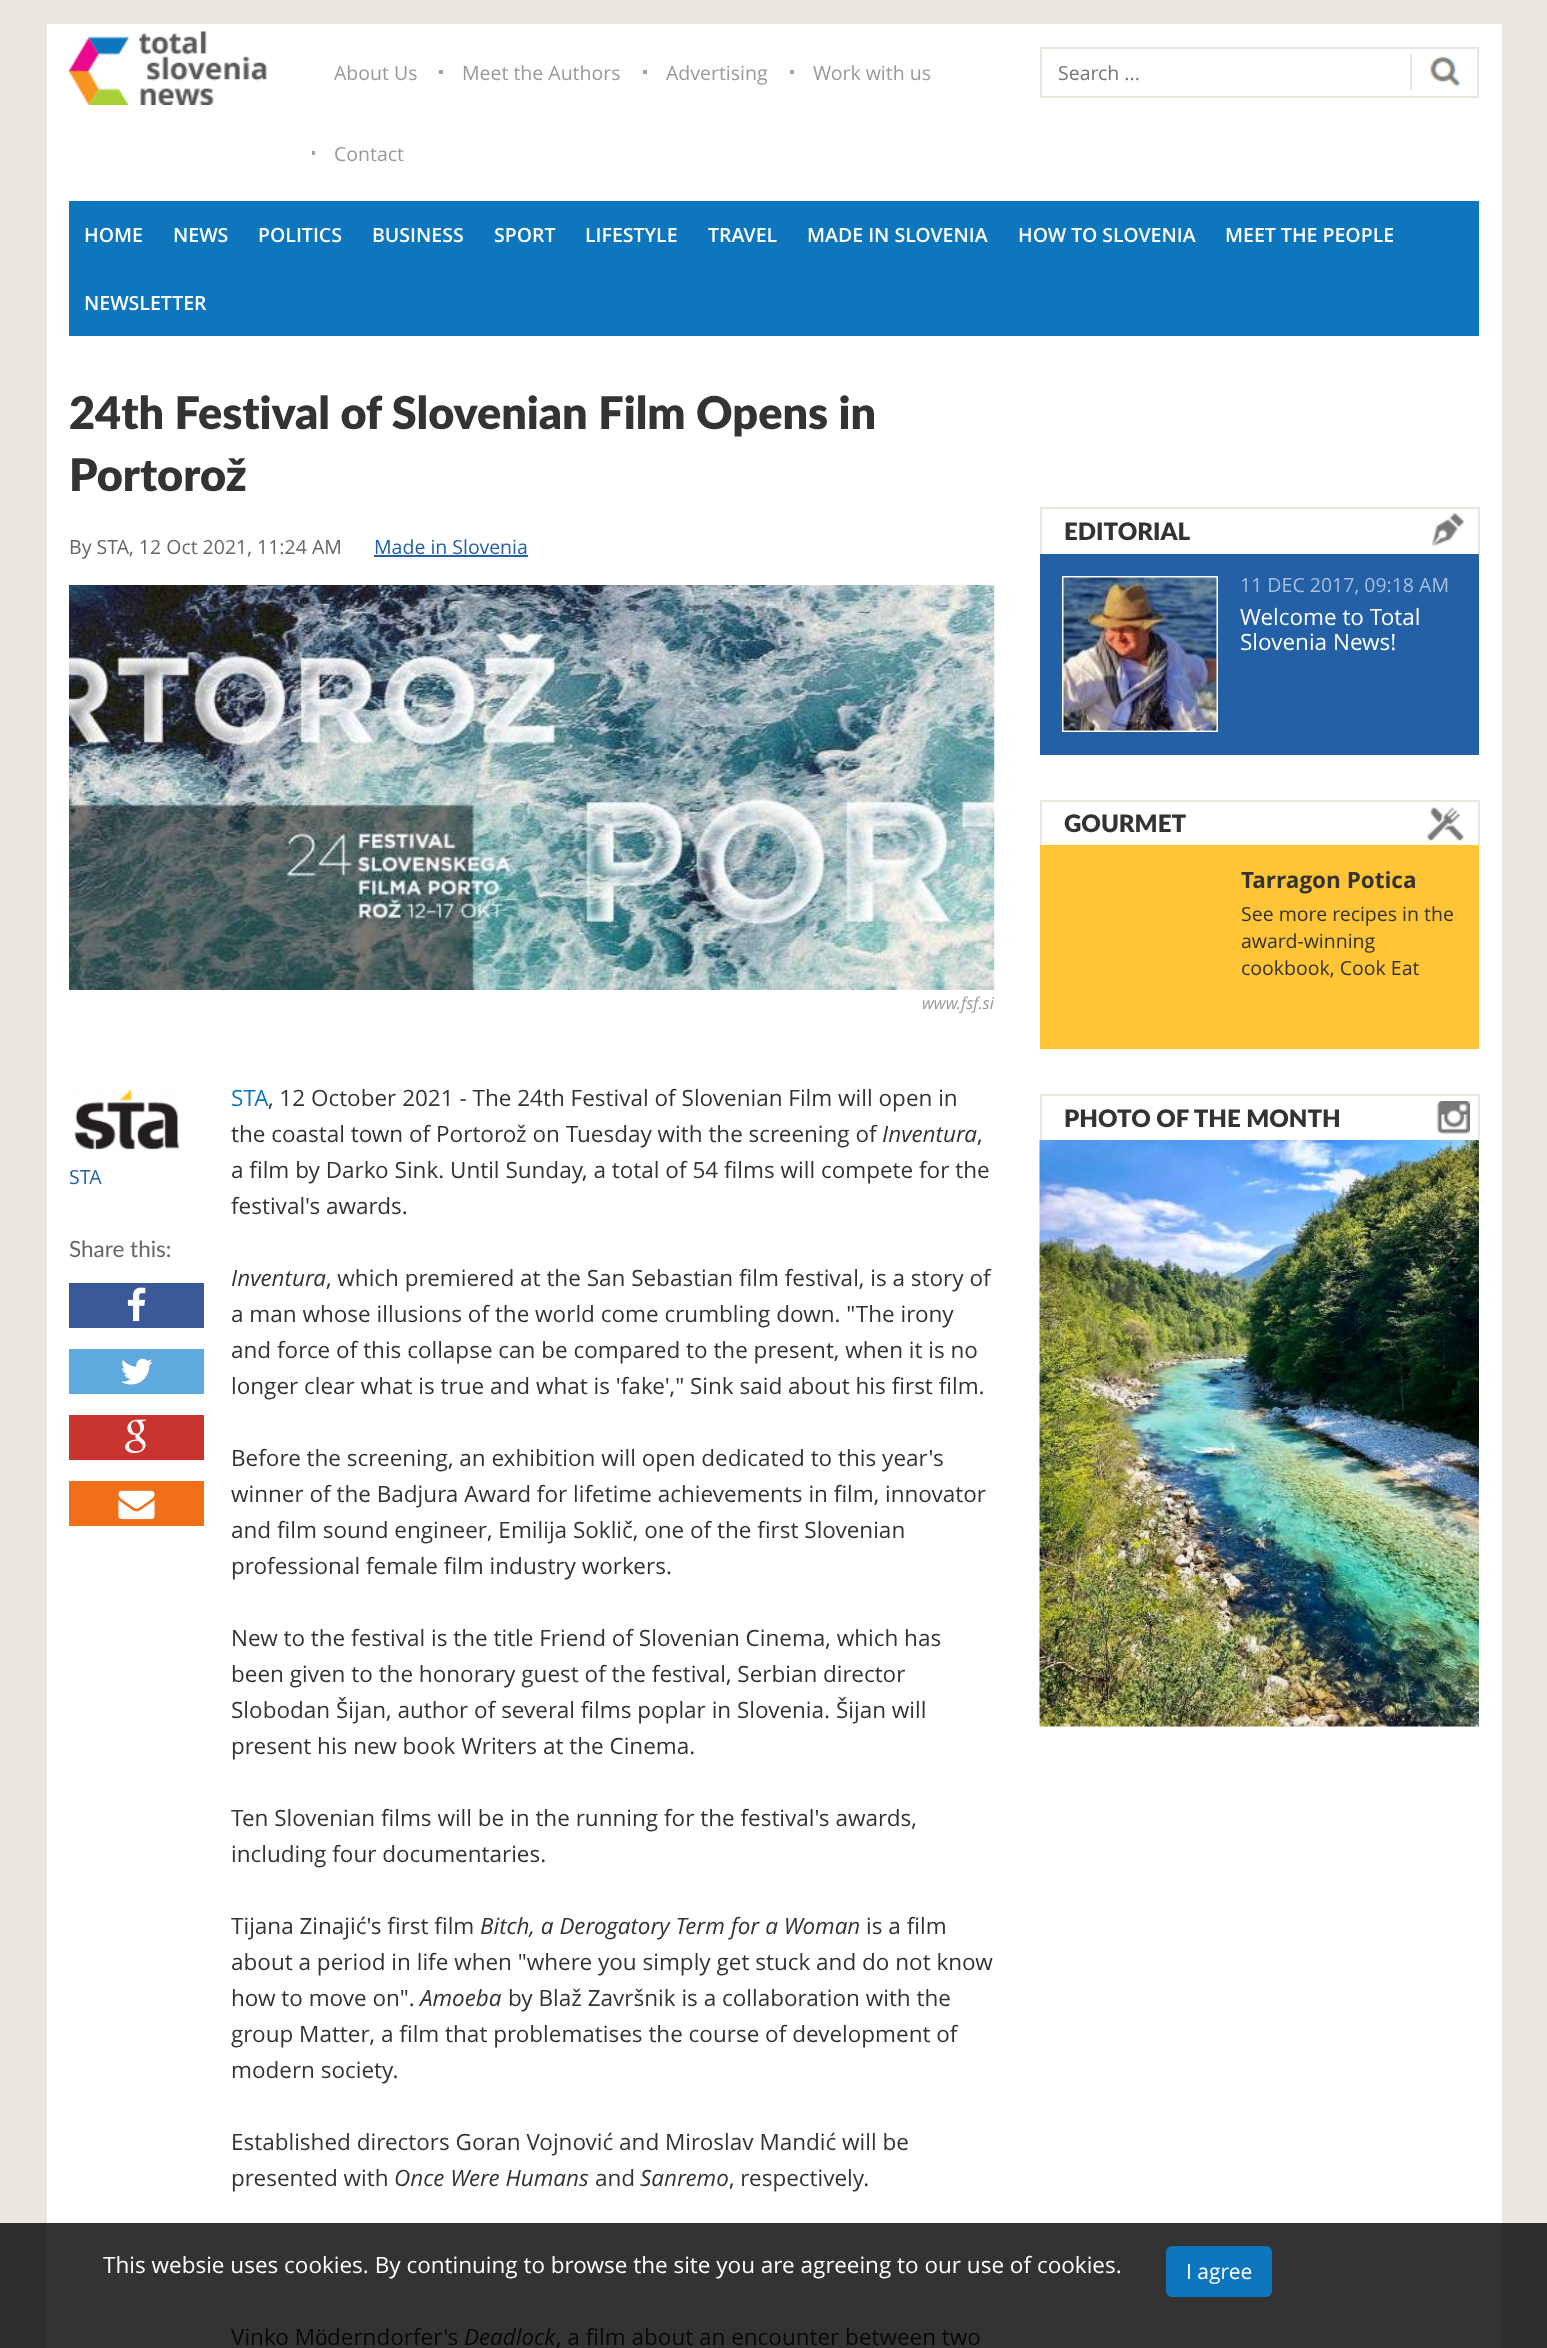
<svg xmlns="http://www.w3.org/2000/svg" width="1547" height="2348">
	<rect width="100%" height="100%" fill="#E9E7DE" />
	<rect x="0" y="2223" width="1547" height="125" fill="#2F2E2C" />
	<rect x="47" y="24" width="1455" height="177" fill="#FFFFFF" />
	<image x="69" y="31" width="198" height="74" href="assets/img1.png" />
	<text x="334" y="80" font-family="Open Sans" font-size="19.5" fill="#999999">About Us</text>
	<rect x="439" y="70" width="4" height="4" fill="#A1A1A1" />
	<text x="462" y="80" font-family="Open Sans" font-size="19.5" fill="#999999">Meet the Authors</text>
	<rect x="643" y="70" width="4" height="4" fill="#A1A1A1" />
	<text x="666" y="80" font-family="Open Sans" font-size="19.5" fill="#999999">Advertising</text>
	<rect x="790" y="70" width="4" height="4" fill="#A1A1A1" />
	<text x="813" y="80" font-family="Open Sans" font-size="19.5" fill="#999999">Work with us</text>
	<rect x="312" y="151" width="3" height="4" fill="#A1A1A1" />
	<text x="334" y="161" font-family="Open Sans" font-size="19.5" fill="#999999">Contact</text>
	<rect x="1041" y="48" width="437" height="49" fill="none" stroke="#E9E7DD" stroke-width="2" />
	<text x="1058" y="80" font-family="Open Sans" font-size="19.5" fill="#757575">Search ...</text>
	<image x="1429" y="56" width="32" height="30" href="assets/img2.png" />
	<rect x="1410" y="54" width="2" height="36" fill="#E9E7DD" />
	<rect x="47" y="201" width="1455" height="2022" fill="#FFFFFF" />
	<rect x="69" y="201" width="1410" height="135" fill="#0E76BC" />
	<g font-family="Open Sans" font-size="19.5" font-weight="600" fill="#FFFFFF">
		<text x="84" y="242">HOME</text>
		<text x="173" y="242">NEWS</text>
		<text x="258" y="242">POLITICS</text>
		<text x="372" y="242">BUSINESS</text>
		<text x="494" y="242">SPORT</text>
		<text x="585" y="242">LIFESTYLE</text>
		<text x="708" y="242">TRAVEL</text>
		<text x="807" y="242">MADE IN SLOVENIA</text>
		<text x="1018" y="242">HOW TO SLOVENIA</text>
		<text x="1225" y="242">MEET THE PEOPLE</text>
		<text x="84" y="310">NEWSLETTER</text>
	</g>
	<rect x="47" y="2223" width="1455" height="125" fill="#333333" />
	<g font-family="Lato" font-size="45" font-weight="900" fill="#333333">
		<text x="69" y="429">24th Festival of Slovenian Film Opens in</text>
		<text x="69" y="491">Portorož</text>
	</g>
	<text x="69" y="554" font-family="Open Sans" font-size="19.5" fill="#666666">By STA, 12 Oct 2021, 11:24 AM</text>
	<text x="374" y="554" font-family="Open Sans" font-size="19.5" fill="#2360A5">Made in Slovenia</text>
	<rect x="374" y="555" width="154" height="2" fill="#2360A5" />
	<image x="69" y="585" width="926" height="405" href="assets/img3.png" />
	<text x="922" y="1009" font-family="Open Sans" font-size="16.5" font-style="italic" fill="#999999">www.fsf.si</text>
	<image x="74" y="1088" width="106" height="62" href="assets/img4.png" />
	<text x="69" y="1184" font-family="Open Sans" font-size="19.5" fill="#2360A5">STA</text>
	<text x="69" y="1257" font-family="Lato" font-size="22.5" fill="#666666">Share this:</text>
	<rect x="69" y="1283" width="135" height="45" fill="#3B5999" />
	<image x="127" y="1287" width="19" height="35" href="assets/img5.png" />
	<rect x="69" y="1349" width="135" height="45" fill="#5EA9DD" />
	<image x="121" y="1358" width="32" height="27" href="assets/img6.png" />
	<rect x="69" y="1415" width="135" height="45" fill="#C9352E" />
	<image x="125" y="1419" width="22" height="35" href="assets/img7.png" />
	<rect x="69" y="1481" width="135" height="45" fill="#F06F18" />
	<image x="118" y="1490" width="37" height="30" href="assets/img8.png" />
	<text x="231" y="1106" font-family="Open Sans" font-size="22.5" fill="#0E76BC">STA</text>
	<g font-family="Open Sans" font-size="22.5" fill="#333333">
		<text x="268" y="1106">, 12 October 2021 - The 24th Festival of Slovenian Film will open in</text>
		<text x="231" y="1142">the coastal town of Portorož on Tuesday with the screening of</text>
	</g>
	<text x="882" y="1142" font-family="Open Sans" font-size="22.5" font-style="italic" fill="#333333">Inventura</text>
	<g font-family="Open Sans" font-size="22.5" fill="#333333">
		<text x="977" y="1142">,</text>
		<text x="231" y="1178">a film by Darko Sink. Until Sunday, a total of 54 films will compete for the</text>
		<text x="231" y="1214">festival's awards.</text>
	</g>
	<text x="231" y="1286" font-family="Open Sans" font-size="22.5" font-style="italic" fill="#333333">Inventura</text>
	<g font-family="Open Sans" font-size="22.5" fill="#333333">
		<text x="326" y="1286">, which premiered at the San Sebastian film festival, is a story of</text>
		<text x="231" y="1322">a man whose illusions of the world come crumbling down. "The irony</text>
		<text x="231" y="1358">and force of this collapse can be compared to the present, when it is no</text>
		<text x="231" y="1394">longer clear what is true and what is 'fake'," Sink said about his first film.</text>
		<text x="231" y="1466">Before the screening, an exhibition will open dedicated to this year's</text>
		<text x="231" y="1502">winner of the Badjura Award for lifetime achievements in film, innovator</text>
		<text x="231" y="1538">and film sound engineer, Emilija Soklič, one of the first Slovenian</text>
		<text x="231" y="1574">professional female film industry workers.</text>
		<text x="231" y="1646">New to the festival is the title Friend of Slovenian Cinema, which has</text>
		<text x="231" y="1682">been given to the honorary guest of the festival, Serbian director</text>
		<text x="231" y="1718">Slobodan Šijan, author of several films poplar in Slovenia. Šijan will</text>
		<text x="231" y="1754">present his new book Writers at the Cinema.</text>
		<text x="231" y="1826">Ten Slovenian films will be in the running for the festival's awards,</text>
		<text x="231" y="1862">including four documentaries.</text>
		<text x="231" y="1934">Tijana Zinajić's first film</text>
	</g>
	<text x="480" y="1934" font-family="Open Sans" font-size="22.5" font-style="italic" fill="#333333">Bitch, a Derogatory Term for a Woman</text>
	<g font-family="Open Sans" font-size="22.5" fill="#333333">
		<text x="866" y="1934">is a film</text>
		<text x="231" y="1970">about a period in life when "where you simply get stuck and do not know</text>
		<text x="231" y="2006">how to move on".</text>
	</g>
	<text x="420" y="2006" font-family="Open Sans" font-size="22.5" font-style="italic" fill="#333333">Amoeba</text>
	<g font-family="Open Sans" font-size="22.5" fill="#333333">
		<text x="508" y="2006">by Blaž Završnik is a collaboration with the</text>
		<text x="231" y="2042">group Matter, a film that problematises the course of development of</text>
		<text x="231" y="2078">modern society.</text>
		<text x="231" y="2150">Established directors Goran Vojnović and Miroslav Mandić will be</text>
		<text x="231" y="2186">presented with</text>
	</g>
	<text x="394" y="2186" font-family="Open Sans" font-size="22.5" font-style="italic" fill="#333333">Once Were Humans</text>
	<text x="595" y="2186" font-family="Open Sans" font-size="22.5" fill="#333333">and</text>
	<text x="640" y="2186" font-family="Open Sans" font-size="22.5" font-style="italic" fill="#333333">Sanremo</text>
	<text x="729" y="2186" font-family="Open Sans" font-size="22.5" fill="#333333">, respectively.</text>
	<text x="231" y="2345" font-family="Open Sans" font-size="22.5" fill="#0A0A0A">Vinko M</text>
	<text x="315" y="2345" font-family="Liberation Sans" font-size="22.5" fill="#0A0A0A">ö</text>
	<text x="327" y="2345" font-family="Open Sans" font-size="22.5" fill="#0A0A0A">derndorfer's</text>
	<text x="464" y="2345" font-family="Open Sans" font-size="22.5" font-style="italic" fill="#0A0A0A">Deadlock</text>
	<text x="556" y="2345" font-family="Open Sans" font-size="22.5" fill="#0A0A0A">, a film about an encounter between two</text>
	<rect x="1040" y="507" width="439" height="2" fill="#E9E7DE" />
	<rect x="1478" y="507" width="2" height="47" fill="#E9E7DE" />
	<rect x="1040" y="507" width="2" height="47" fill="#E9E7DE" />
	<text x="1064" y="540" font-family="Lato" font-size="24" font-weight="900" fill="#333333">EDITORIAL</text>
	<image x="1432" y="513" width="33" height="34" href="assets/img9.png" />
	<rect x="1040" y="554" width="439" height="201" fill="#2360A5" />
	<rect x="1062" y="576" width="156" height="156" fill="#FFFFFF" />
	<image x="1063" y="577" width="154" height="154" href="assets/img10.png" />
	<text x="1240" y="592" font-family="Open Sans" font-size="19.5" fill="#A7BFDB">11 DEC 2017, 09:18 AM</text>
	<g font-family="Open Sans" font-size="22.5" fill="#FFFFFF">
		<text x="1240" y="625">Welcome to Total</text>
		<text x="1240" y="650">Slovenia News!</text>
	</g>
	<rect x="1040" y="800" width="439" height="2" fill="#E9E7DE" />
	<rect x="1478" y="800" width="2" height="45" fill="#E9E7DE" />
	<rect x="1040" y="800" width="2" height="45" fill="#E9E7DE" />
	<text x="1064" y="832" font-family="Lato" font-size="24" font-weight="900" fill="#333333">GOURMET</text>
	<image x="1426" y="807" width="38" height="34" href="assets/img11.png" />
	<rect x="1040" y="845" width="439" height="204" fill="#FFC536" />
	<text x="1241" y="888" font-family="Open Sans" font-size="22.5" font-weight="700" fill="#333333">Tarragon Potica</text>
	<g font-family="Open Sans" font-size="19.5" fill="#333333">
		<text x="1241" y="921">See more recipes in the</text>
		<text x="1241" y="948">award-winning</text>
		<text x="1241" y="975">cookbook, Cook Eat</text>
	</g>
	<rect x="1040" y="1094" width="439" height="2" fill="#E9E7DE" />
	<rect x="1478" y="1094" width="2" height="46" fill="#E9E7DE" />
	<rect x="1040" y="1094" width="2" height="46" fill="#E9E7DE" />
	<text x="1064" y="1127" font-family="Lato" font-size="24" font-weight="900" fill="#333333">PHOTO OF THE MONTH</text>
	<image x="1437" y="1101" width="33" height="33" href="assets/img12.png" />
	<image x="1039" y="1140" width="440" height="587" href="assets/img13.png" />
	<text x="103" y="2273" font-family="Open Sans" font-size="22.5" fill="#FFFFFF">This websie uses cookies. By continuing to browse the site you are agreeing to our use of cookies.</text>
	<rect x="1166" y="2246" width="106" height="51" rx="6" fill="#0E76BC" />
	<text x="1186" y="2279" font-family="Open Sans" font-size="21" fill="#FFFFFF">I agree</text>
</svg>
